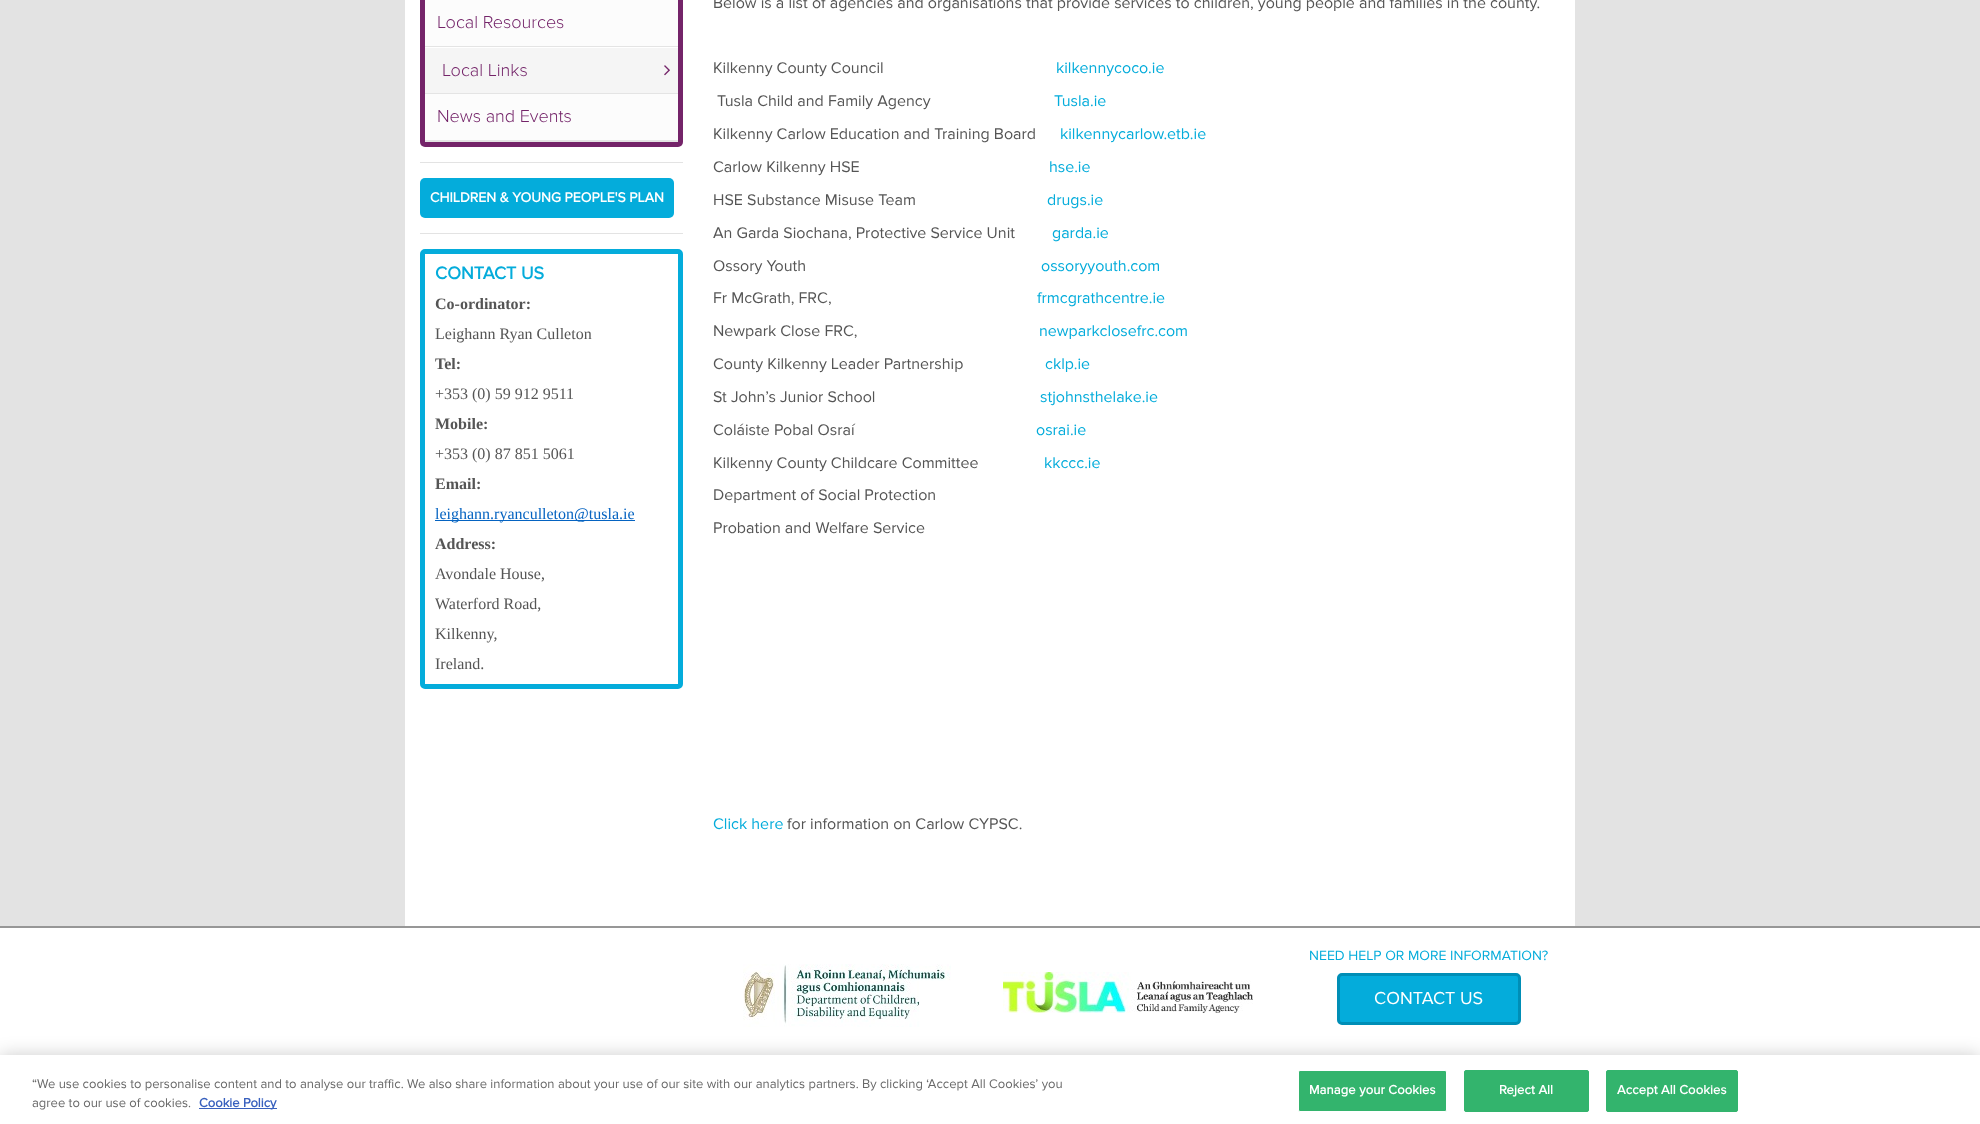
<svg xmlns="http://www.w3.org/2000/svg" width="1980" height="1124">
	<rect width="100%" height="100%" fill="#E3E3E3" />
	<rect x="405" y="0" width="1170" height="926" fill="#FFFFFF" />
	<rect x="420" y="162" width="263" height="1" fill="#E3E3E3" />
	<rect x="420" y="-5" width="263" height="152" rx="5" fill="#742469" />
	<rect x="425" y="140" width="253" height="2" fill="#E4E4E4" />
	<rect x="425" y="46" width="253" height="1" fill="#E4E4E4" />
	<rect x="425" y="0" width="253" height="46" fill="#FCFCFC" />
	<text x="437" y="28" font-family="Proxima Nova" font-size="18" font-weight="300" fill="#742469">Local Resources</text>
	<rect x="425" y="93" width="253" height="1" fill="#E4E4E4" />
	<rect x="425" y="48" width="253" height="45" fill="#F5F5F5" />
	<rect x="425" y="47" width="253" height="1" fill="#FFFFFF" />
	<text x="442" y="76" font-family="Proxima Nova" font-size="18" font-weight="300" fill="#742469">Local Links</text>
	<image x="664" y="65" width="6" height="11" href="assets/img1.png" />
	<rect x="425" y="94" width="253" height="46" fill="#FCFCFC" />
	<text x="437" y="122" font-family="Proxima Nova" font-size="18" font-weight="300" fill="#742469">News and Events</text>
	<rect x="420" y="233" width="263" height="1" fill="#E3E3E3" />
	<rect x="420" y="178" width="254" height="40" rx="5" fill="#04ACDB" />
	<text x="430" y="202" font-family="Proxima Nova" font-size="14" font-weight="700" fill="#FFFFFF">CHILDREN &amp; YOUNG PEOPLE'S PLAN</text>
	<rect x="422.5" y="251.5" width="258" height="435" rx="2.5" fill="none" stroke="#04ACDB" stroke-width="5" />
	<text x="435" y="279" font-family="Proxima Nova" font-size="18" font-weight="700" fill="#04ACDB">CONTACT US</text>
	<text x="435" y="309" font-family="Liberation Serif" font-size="16" font-weight="700" fill="#555555">Co-ordinator:</text>
	<text x="435" y="339" font-family="Liberation Serif" font-size="16" fill="#555555">Leighann Ryan Culleton</text>
	<text x="435" y="369" font-family="Liberation Serif" font-size="16" font-weight="700" fill="#555555">Tel:</text>
	<text x="435" y="399" font-family="Liberation Serif" font-size="16" fill="#555555">+353 (0) 59 912 9511</text>
	<text x="435" y="429" font-family="Liberation Serif" font-size="16" font-weight="700" fill="#555555">Mobile:</text>
	<text x="435" y="459" font-family="Liberation Serif" font-size="16" fill="#555555">+353 (0) 87 851 5061</text>
	<text x="435" y="489" font-family="Liberation Serif" font-size="16" font-weight="700" fill="#555555">Email:</text>
	<rect x="435" y="520" width="200" height="1" fill="#0563C1" />
	<text x="435" y="519" font-family="Liberation Serif" font-size="16" fill="#0563C1">leighann.ryanculleton@tusla.ie</text>
	<text x="435" y="549" font-family="Liberation Serif" font-size="16" font-weight="700" fill="#555555">Address:</text>
	<g font-family="Liberation Serif" font-size="16" fill="#555555">
		<text x="435" y="579">Avondale House,</text>
		<text x="435" y="609">Waterford Road,</text>
		<text x="435" y="639">Kilkenny,</text>
		<text x="435" y="669">Ireland.</text>
	</g>
	<g font-family="Proxima Nova" font-size="16" fill="#555555">
		<text x="713" y="8">Below is a list of agencies and organisations that provide services to children, young people and families in the county.</text>
		<text x="713" y="73">Kilkenny County Council</text>
	</g>
	<text x="1056" y="73" font-family="Proxima Nova" font-size="16" fill="#04ACDB">kilkennycoco.ie</text>
	<text x="717" y="106" font-family="Proxima Nova" font-size="16" fill="#555555">Tusla Child and Family Agency</text>
	<text x="1054" y="106" font-family="Proxima Nova" font-size="16" fill="#04ACDB">Tusla.ie</text>
	<text x="713" y="139" font-family="Proxima Nova" font-size="16" fill="#555555">Kilkenny Carlow Education and Training Board</text>
	<text x="1060" y="139" font-family="Proxima Nova" font-size="16" fill="#04ACDB">kilkennycarlow.etb.ie</text>
	<text x="713" y="172" font-family="Proxima Nova" font-size="16" fill="#555555">Carlow Kilkenny HSE</text>
	<text x="1049" y="172" font-family="Proxima Nova" font-size="16" fill="#04ACDB">hse.ie</text>
	<text x="713" y="205" font-family="Proxima Nova" font-size="16" fill="#555555">HSE Substance Misuse Team</text>
	<text x="1047" y="205" font-family="Proxima Nova" font-size="16" fill="#04ACDB">drugs.ie</text>
	<text x="713" y="238" font-family="Proxima Nova" font-size="16" fill="#555555">An Garda Siochana, Protective Service Unit</text>
	<text x="1052" y="238" font-family="Proxima Nova" font-size="16" fill="#04ACDB">garda.ie</text>
	<text x="713" y="271" font-family="Proxima Nova" font-size="16" fill="#555555">Ossory Youth</text>
	<text x="1041" y="271" font-family="Proxima Nova" font-size="16" fill="#04ACDB">ossoryyouth.com</text>
	<text x="713" y="303" font-family="Proxima Nova" font-size="16" fill="#555555">Fr McGrath, FRC,</text>
	<text x="1037" y="303" font-family="Proxima Nova" font-size="16" fill="#04ACDB">frmcgrathcentre.ie</text>
	<text x="713" y="336" font-family="Proxima Nova" font-size="16" fill="#555555">Newpark Close FRC,</text>
	<text x="1039" y="336" font-family="Proxima Nova" font-size="16" fill="#04ACDB">newparkclosefrc.com</text>
	<text x="713" y="369" font-family="Proxima Nova" font-size="16" fill="#555555">County Kilkenny Leader Partnership</text>
	<text x="1045" y="369" font-family="Proxima Nova" font-size="16" fill="#04ACDB">cklp.ie</text>
	<text x="713" y="402" font-family="Proxima Nova" font-size="16" fill="#555555">St John’s Junior School</text>
	<text x="1040" y="402" font-family="Proxima Nova" font-size="16" fill="#04ACDB">stjohnsthelake.ie</text>
	<text x="713" y="435" font-family="Proxima Nova" font-size="16" fill="#555555">Coláiste Pobal Osraí</text>
	<text x="1036" y="435" font-family="Proxima Nova" font-size="16" fill="#04ACDB">osrai.ie</text>
	<text x="713" y="468" font-family="Proxima Nova" font-size="16" fill="#555555">Kilkenny County Childcare Committee</text>
	<text x="1044" y="468" font-family="Proxima Nova" font-size="16" fill="#04ACDB">kkccc.ie</text>
	<g font-family="Proxima Nova" font-size="16" fill="#555555">
		<text x="713" y="500">Department of Social Protection</text>
		<text x="713" y="533">Probation and Welfare Service</text>
	</g>
	<text x="713" y="829" font-family="Proxima Nova" font-size="16" fill="#04ACDB">Click here</text>
	<text x="787" y="829" font-family="Proxima Nova" font-size="16" fill="#555555">for information on Carlow CYPSC.</text>
	<rect x="0" y="928" width="1980" height="127" fill="#FFFFFF" />
	<rect x="0" y="926" width="1980" height="2" fill="#979797" />
	<image x="743" y="964" width="208" height="63" href="assets/img2.png" />
	<image x="1003" y="972" width="250" height="41" href="assets/img3.png" />
	<text x="1309" y="960" font-family="Proxima Nova" font-size="14" fill="#04ACDB">NEED HELP OR MORE INFORMATION?</text>
	<rect x="1338.5" y="974.5" width="181" height="49" rx="3.5" fill="#04ACDB" stroke="#008EB6" stroke-width="3" />
	<text x="1374" y="1004" font-family="Proxima Nova" font-size="18" fill="#FFFFFF">CONTACT US</text>
	<rect x="0" y="1055" width="1980" height="69" fill="#000000" fill-opacity="0.2" filter="blur(9px)" />
	<rect x="0" y="1055" width="1980" height="69" fill="#FFFFFF" />
	<g font-family="Proxima Nova" font-size="13" fill="#696969">
		<text x="32" y="1088">“We use cookies to personalise content and to analyse our traffic. We also share information about your use of our site with our analytics partners. By clicking ‘Accept All Cookies’ you</text>
		<text x="32" y="1107">agree to our use of cookies.</text>
	</g>
	<rect x="199" y="1108" width="78" height="1" fill="#3860BE" />
	<text x="199" y="1107" font-family="Proxima Nova" font-size="13" font-weight="700" fill="#3860BE">Cookie Policy</text>
	<rect x="1298.5" y="1070.5" width="148" height="41" rx="1.5" fill="#33B46D" stroke="#FFFFFF" />
	<text x="1309" y="1094" font-family="Proxima Nova" font-size="13" font-weight="700" letter-spacing="0.1" fill="#FFFFFF">Manage your Cookies</text>
	<rect x="1464.5" y="1070.5" width="124" height="41" rx="1.5" fill="#33B46D" stroke="#33B46D" />
	<text x="1499" y="1094" font-family="Proxima Nova" font-size="13" font-weight="700" letter-spacing="0.1" fill="#FFFFFF">Reject All</text>
	<rect x="1606.5" y="1070.5" width="131" height="41" rx="1.5" fill="#33B46D" stroke="#33B46D" />
	<text x="1617" y="1094" font-family="Proxima Nova" font-size="13" font-weight="700" letter-spacing="0.1" fill="#FFFFFF">Accept All Cookies</text>
</svg>
